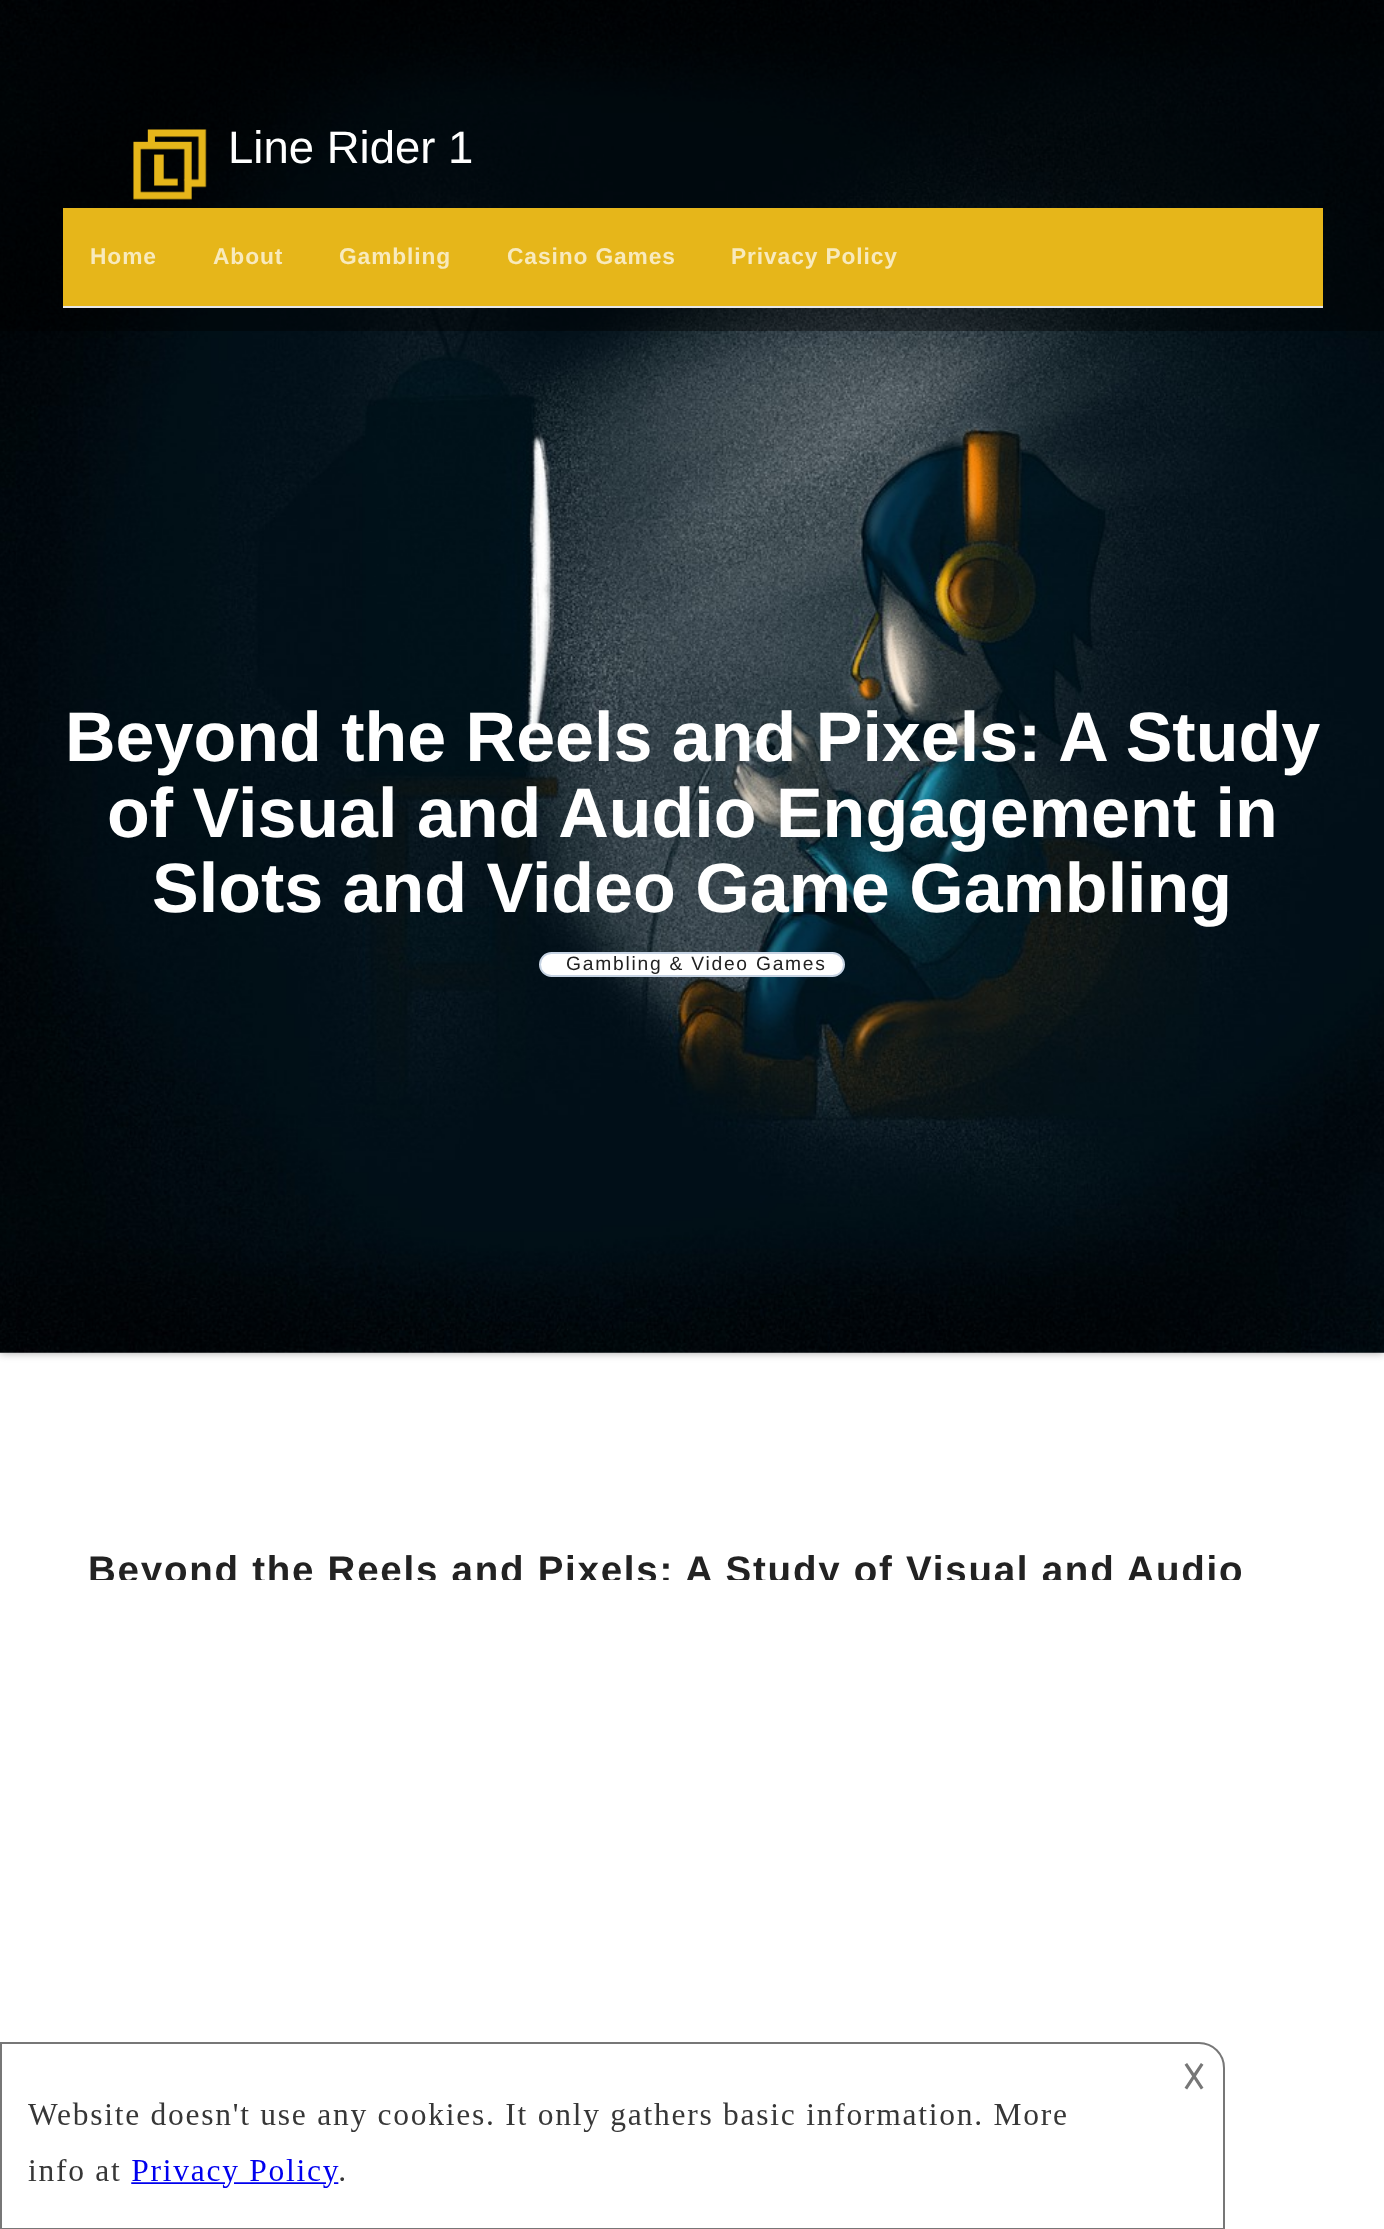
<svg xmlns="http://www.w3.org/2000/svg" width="1384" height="2229">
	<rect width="100%" height="100%" fill="#FFFFFF" />
	<rect x="0" y="0" width="1384" height="1353" fill="#AAAAAA" filter="blur(4.5px)" />
	<image x="0" y="0" width="1384" height="1353" href="assets/img2.png" />
	<rect x="0" y="0" width="1384" height="331" fill="#000000" fill-opacity="0.4" />
	<image x="133" y="129" width="74" height="71" href="assets/img1.png" />
	<text x="228" y="163" font-family="Liberation Sans" font-size="45.5" fill="#FFFFFF">Line Rider 1</text>
	<rect x="63" y="208" width="1260" height="98" fill="#E6B61A" />
	<rect x="63" y="306" width="1260" height="2" fill="#E7E7E7" />
	<g font-family="Liberation Sans" font-size="22.75" font-weight="700" letter-spacing="0.9" fill="#F8EABD">
		<text x="90" y="264">Home</text>
		<text x="213" y="264">About</text>
		<text x="339" y="264">Gambling</text>
		<text x="507" y="264">Casino Games</text>
		<text x="731" y="264">Privacy Policy</text>
	</g>
	<g font-family="Liberation Sans" font-size="70" font-weight="700" fill="#FFFFFF">
		<text x="65" y="761">Beyond the Reels and Pixels: A Study</text>
		<text x="107" y="837">of Visual and Audio Engagement in</text>
		<text x="152" y="912">Slots and Video Game Gambling</text>
	</g>
	<rect x="540" y="953" width="304" height="23" rx="11.5" fill="#FFFFFF" stroke="#C6D3E3" stroke-width="2" />
	<text x="566" y="970" font-family="Liberation Sans" font-size="19.25" letter-spacing="1.75" fill="#222222">Gambling &amp; Video Games</text>
	<text x="88" y="1583" font-family="Liberation Sans" font-size="38.5" font-weight="700" letter-spacing="1.75" fill="#222222">Beyond the Reels and Pixels: A Study of Visual and Audio</text>
	<rect x="90" y="1580" width="1149" height="11" fill="#FFFFFF" />
	<path d="M1 2043H1199C1213 2043 1224 2054 1224 2068V2229H1Z" fill="none" stroke="#777777" stroke-width="2" />
	<text x="1182" y="2089" font-family="DejaVu Sans" font-size="35" fill="#777777">𐌢</text>
	<image x="28" y="2102" width="1038" height="86" href="assets/img3.png" />
</svg>
